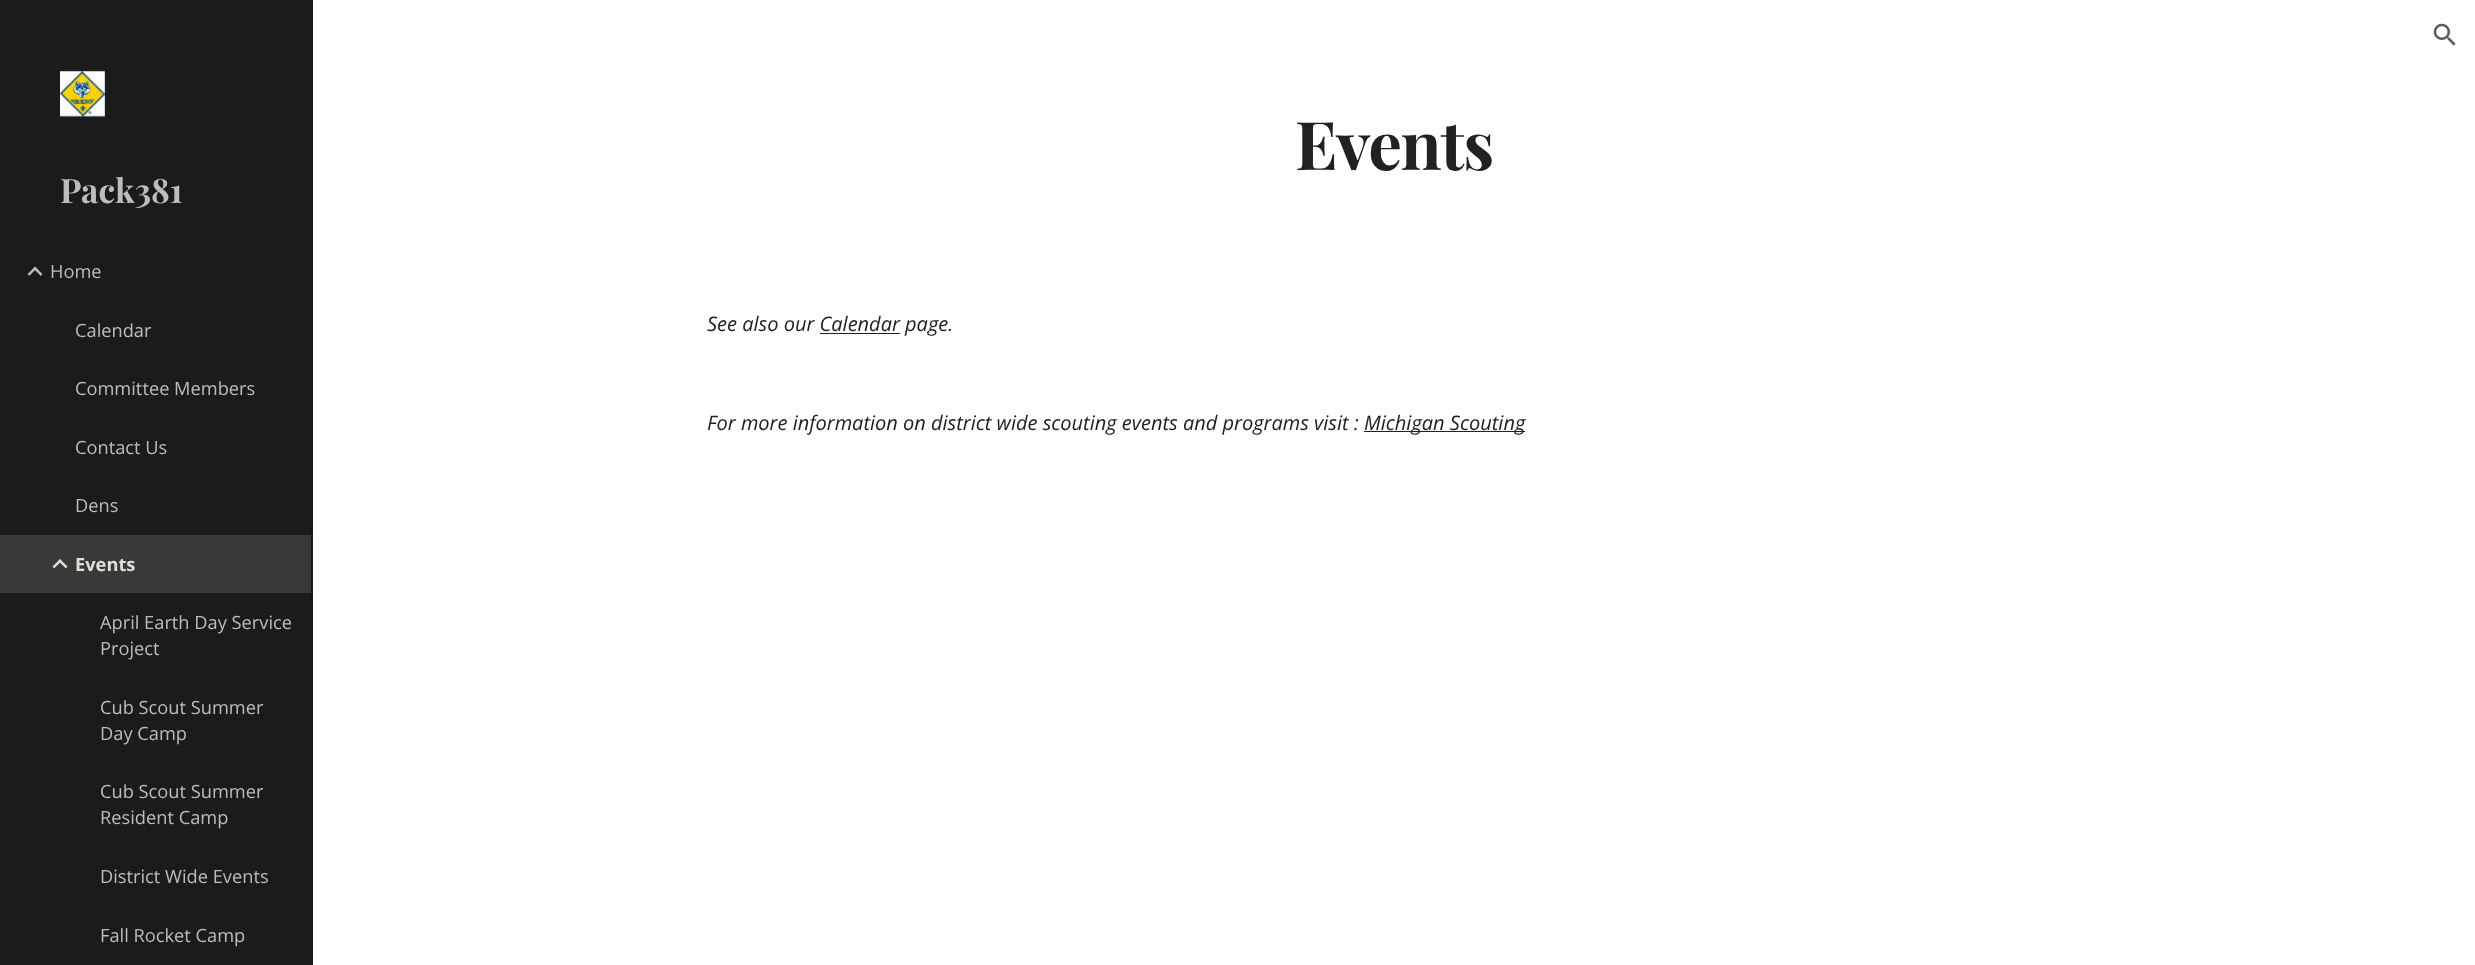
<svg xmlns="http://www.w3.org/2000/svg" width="2475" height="965">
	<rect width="100%" height="100%" fill="#FFFFFF" />
	<image x="2433" y="23" width="23" height="23" href="assets/img1.png" />
	<rect x="0" y="0" width="313" height="965" fill="#1B1B1B" />
	<rect x="311" y="0" width="1" height="965" fill="#171717" />
	<image x="60" y="71" width="45" height="46" href="assets/img2.png" />
	<text x="60" y="203" font-family="Playfair Display" font-size="33.5" font-weight="700" fill="#BDBDBD">Pack381</text>
	<image x="27" y="266" width="16" height="10" href="assets/img3.png" />
	<g font-family="Open Sans" font-size="18.25" fill="#BDBDBD">
		<text x="50" y="278">Home</text>
		<text x="75" y="337">Calendar</text>
		<text x="75" y="395">Committee Members</text>
		<text x="75" y="454">Contact Us</text>
		<text x="75" y="512">Dens</text>
	</g>
	<rect x="0" y="535" width="311" height="58" fill="#3A3938" />
	<image x="52" y="559" width="16" height="10" href="assets/img4.png" />
	<text x="75" y="571" font-family="Open Sans" font-size="18.25" font-weight="700" fill="#E1DFDB">Events</text>
	<g font-family="Open Sans" font-size="18.25" fill="#BDBDBD">
		<text x="100" y="629">April Earth Day Service</text>
		<text x="100" y="655">Project</text>
		<text x="100" y="714">Cub Scout Summer</text>
		<text x="100" y="740">Day Camp</text>
		<text x="100" y="798">Cub Scout Summer</text>
		<text x="100" y="824">Resident Camp</text>
		<text x="100" y="883">District Wide Events</text>
		<text x="100" y="942">Fall Rocket Camp</text>
	</g>
	<text x="1295" y="170" font-family="Playfair Display" font-size="67" font-weight="700" letter-spacing="-1" fill="#212121">Events</text>
	<text x="707" y="331" font-family="Open Sans" font-size="20" font-style="italic" fill="#212121">See also our Calendar page.</text>
	<rect x="820" y="333" width="80" height="1" fill="#212121" />
	<text x="707" y="430" font-family="Open Sans" font-size="20" font-style="italic" fill="#212121">For more information on district wide scouting events and programs visit :</text>
	<rect x="1364" y="431" width="161" height="1" fill="#212121" />
	<text x="1364" y="430" font-family="Open Sans" font-size="20" font-style="italic" fill="#212121">Michigan Scouting</text>
</svg>
